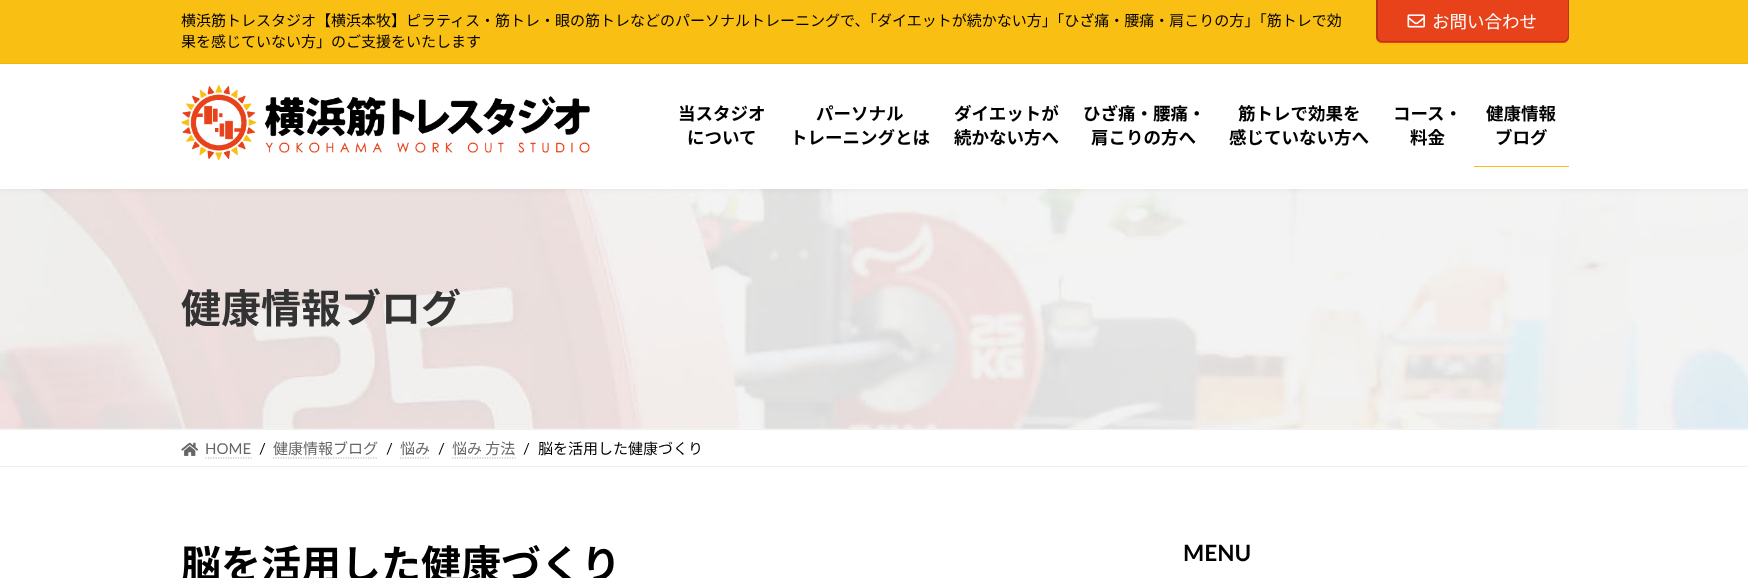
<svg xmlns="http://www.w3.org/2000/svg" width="1748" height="578">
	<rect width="100%" height="100%" fill="#FFFFFF" />
	<image x="0" y="189" width="1748" height="240" href="assets/img3.png" />
	<rect x="0" y="-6" width="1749" height="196" fill="#000000" fill-opacity="0.05" filter="blur(2px)" />
	<rect x="0" y="64" width="1748" height="125" fill="#FFFFFF" />
	<rect x="0" y="0" width="1748" height="63" fill="#FABF13" />
	<rect x="0" y="63" width="1748" height="1" fill="#F0B712" />
	<g font-family="Noto Sans JP" font-size="15" fill="#000000">
		<text x="181" y="26">横浜筋トレスタジオ【横浜本牧】ピラティス・筋トレ・眼の筋トレなどのパーソナルトレーニングで、「ダイエットが続かない方」「ひざ痛・腰痛・肩こりの方」「筋トレで効</text>
		<text x="181" y="47">果を感じていない方」のご支援をいたします</text>
	</g>
	<path d="M1376 0H1569V37C1569 40.5 1566.5 43 1563 43H1382C1378.5 43 1376 40.5 1376 37Z" fill="#E8421B" />
	<path d="M1376 0H1569V36C1569 40 1566 42 1562 42H1382C1379 42 1376 40 1376 36ZM1378 0H1568V36C1568 39 1565 41 1562 41H1382C1380 41 1378 39 1378 36Z" fill="#B93415" fill-rule="evenodd" />
	<image x="1407" y="14" width="18" height="14" href="assets/img1.png" />
	<text x="1432" y="28" font-family="Noto Sans JP" font-size="17.5" fill="#FFFFFF">お問い合わせ</text>
	<image x="181" y="85" width="409" height="75" href="assets/img2.png" />
	<g font-family="Noto Sans JP" font-size="17.5" font-weight="700" fill="#000000">
		<text x="678" y="120">当スタジオ</text>
		<text x="687" y="144">について</text>
		<text x="816" y="120">パーソナル</text>
		<text x="790" y="144">トレーニングとは</text>
		<text x="954" y="120">ダイエットが</text>
		<text x="954" y="144">続かない方へ</text>
		<text x="1083" y="120">ひざ痛・腰痛・</text>
		<text x="1091" y="144">肩こりの方へ</text>
		<text x="1238" y="120">筋トレで効果を</text>
		<text x="1229" y="144">感じていない方へ</text>
		<text x="1393" y="120">コース・</text>
		<text x="1410" y="144">料金</text>
		<text x="1486" y="120">健康情報</text>
		<text x="1495" y="144">ブログ</text>
	</g>
	<rect x="1474" y="166" width="95" height="1" fill="#FABF13" />
	<text x="181" y="323" font-family="Noto Sans JP" font-size="40" font-weight="700" fill="#333333">健康情報ブログ</text>
	<rect x="0" y="429" width="1748" height="1" fill="#F0F0F0" />
	<rect x="0" y="466" width="1748" height="1" fill="#F0F0F0" />
	<image x="181" y="442" width="18" height="14" href="assets/img4.png" />
	<text x="205" y="454" font-family="Lato" font-size="15" fill="#666666">HOME</text>
	<path d="M205.5 458H251.5" fill="none" stroke="#B3B3B3" stroke-width="1.2" stroke-dasharray="1.25 1.25" />
	<text x="259" y="454" font-family="Lato" font-size="15" fill="#000000">/</text>
	<text x="273" y="454" font-family="Noto Sans JP" font-size="15" fill="#666666">健康情報ブログ</text>
	<path d="M273 458H378" fill="none" stroke="#B3B3B3" stroke-width="1.2" stroke-dasharray="1.25 1.25" />
	<text x="386" y="454" font-family="Lato" font-size="15" fill="#000000">/</text>
	<text x="400" y="454" font-family="Noto Sans JP" font-size="15" fill="#666666">悩み</text>
	<path d="M400 458H430" fill="none" stroke="#B3B3B3" stroke-width="1.2" stroke-dasharray="1.25 1.25" />
	<text x="438" y="454" font-family="Lato" font-size="15" fill="#000000">/</text>
	<text x="452" y="454" font-family="Noto Sans JP" font-size="15" fill="#666666">悩み 方法</text>
	<path d="M452 458H515.5" fill="none" stroke="#B3B3B3" stroke-width="1.2" stroke-dasharray="1.25 1.25" />
	<text x="523" y="454" font-family="Lato" font-size="15" fill="#000000">/</text>
	<text x="538" y="454" font-family="Noto Sans JP" font-size="15" fill="#000000">脳を活用した健康づくり</text>
	<text x="181" y="579" font-family="Noto Sans JP" font-size="40" font-weight="700" fill="#000000">脳を活用した健康づくり</text>
	<text x="1183" y="561" font-family="Lato" font-size="22.5" font-weight="700" fill="#000000">MENU</text>
</svg>
